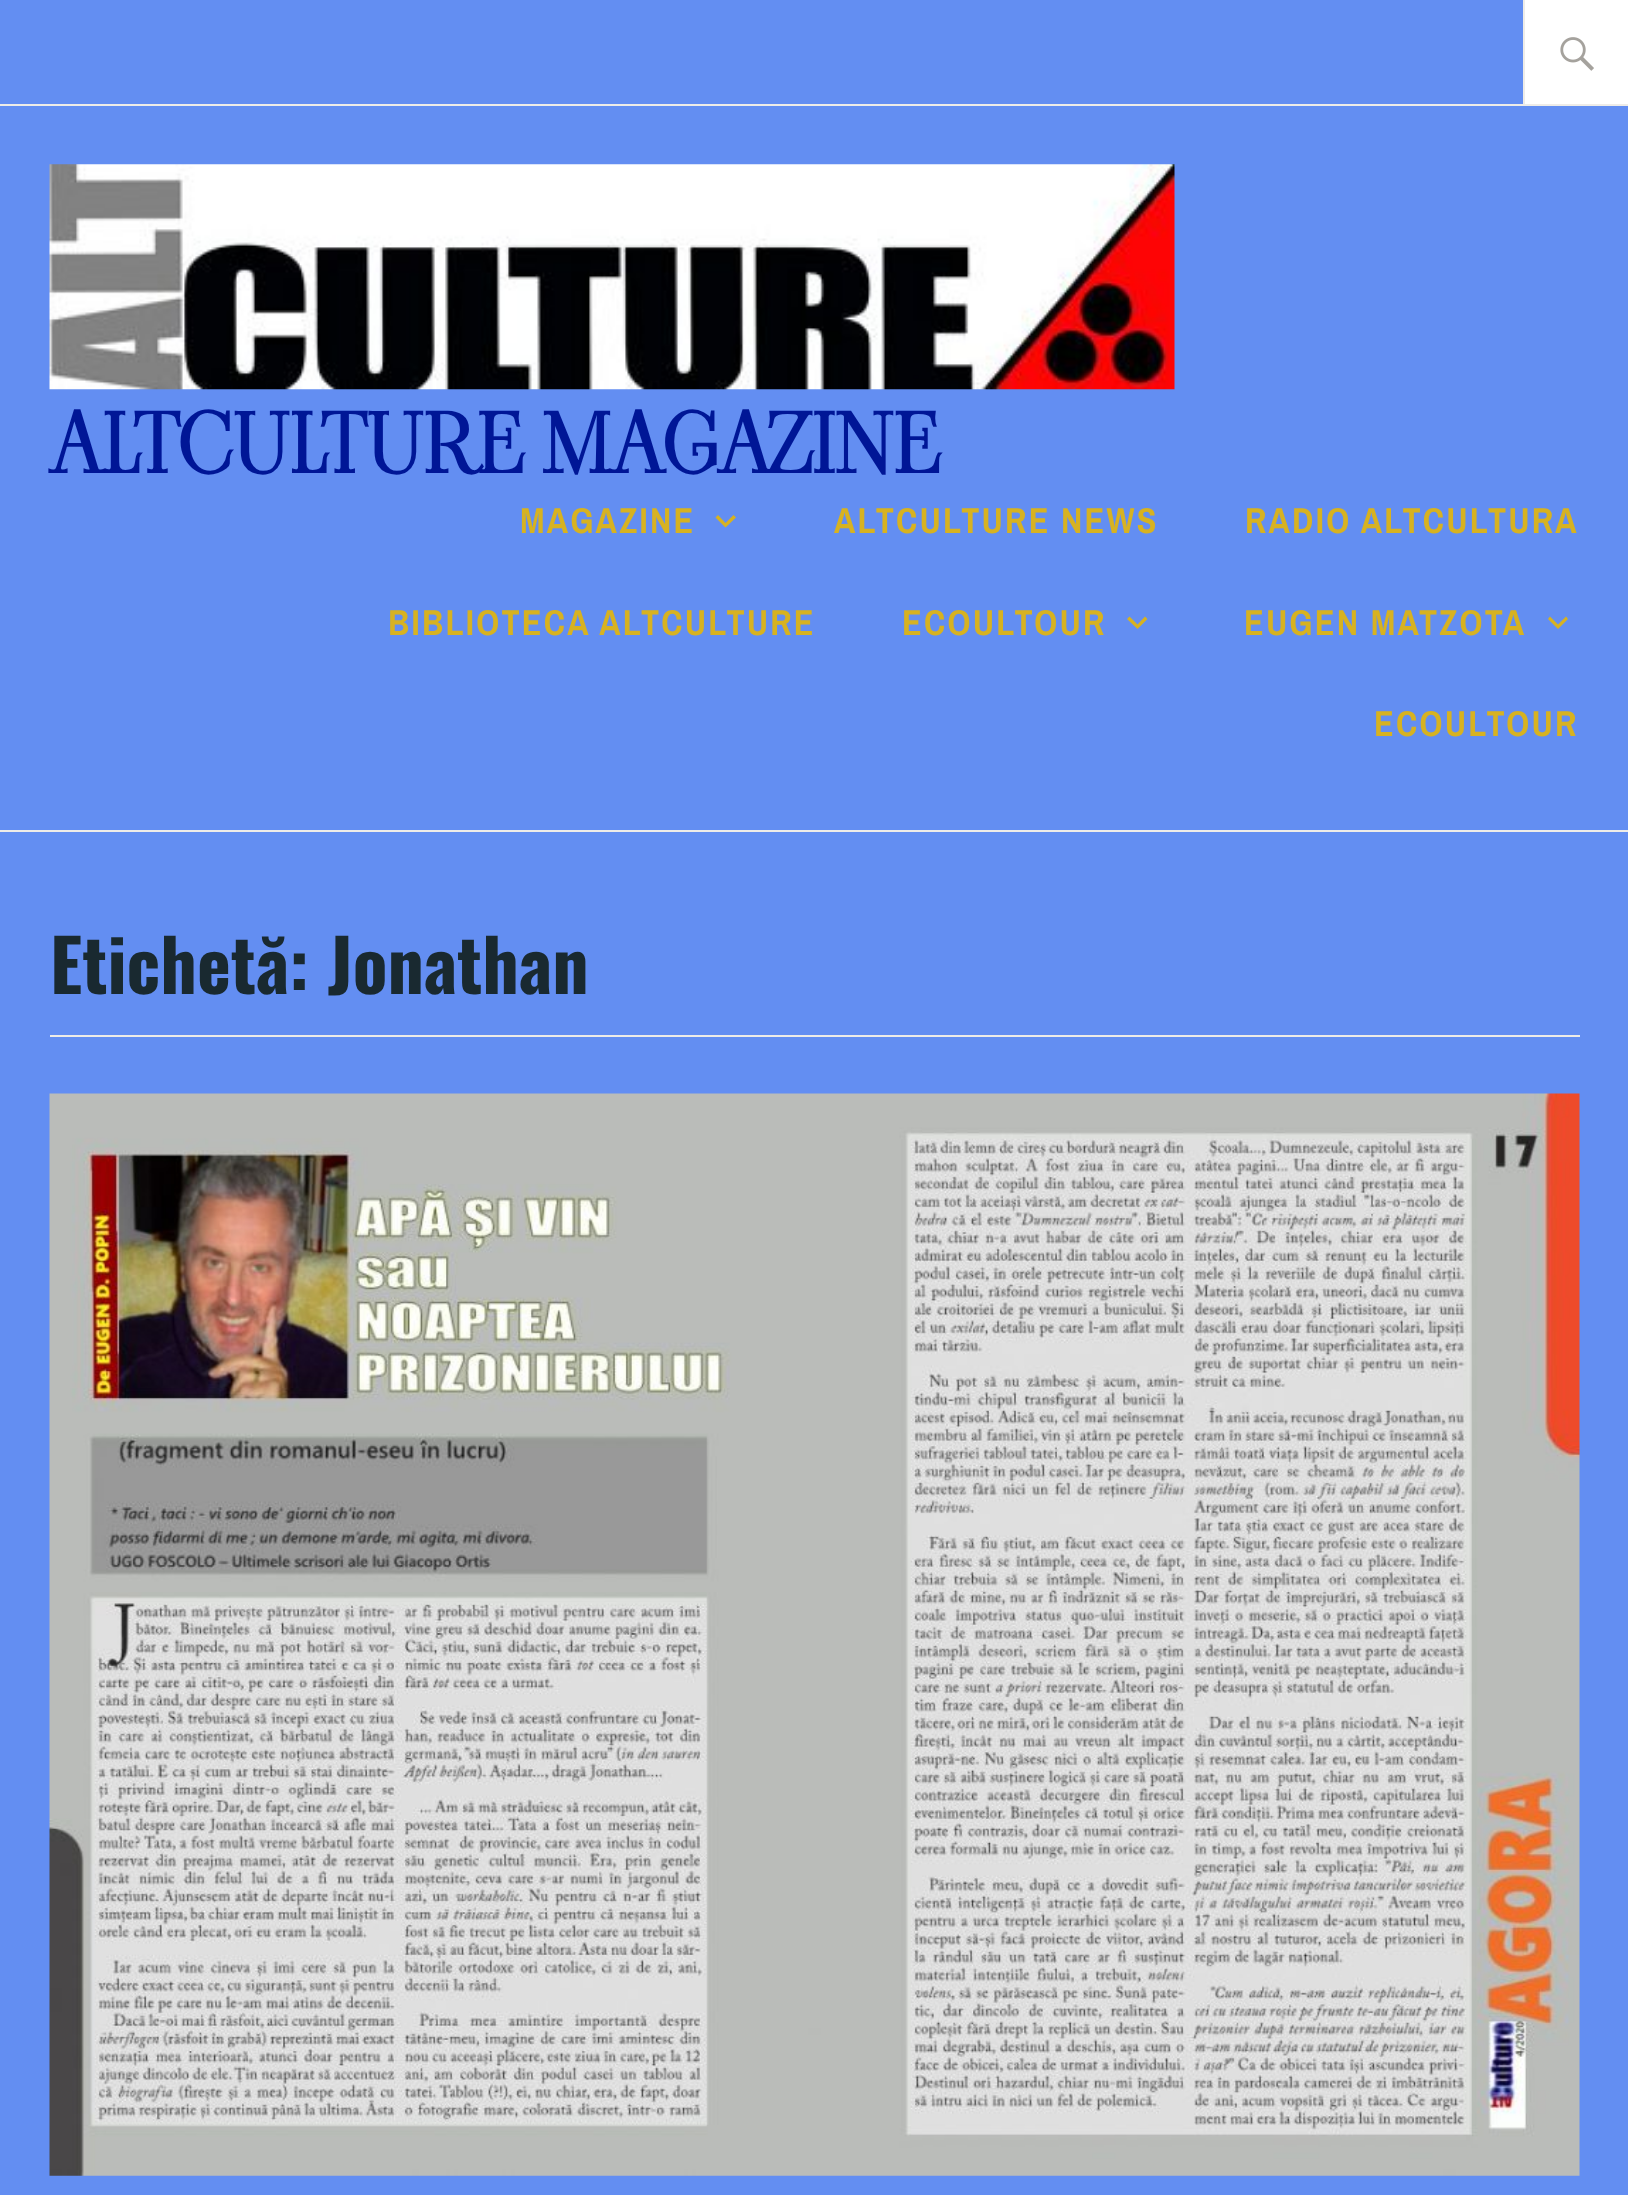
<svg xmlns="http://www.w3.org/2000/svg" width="1628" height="2195">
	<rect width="100%" height="100%" fill="#638EF2" />
	<rect x="0" y="830" width="1628" height="2" fill="#EEECE8" />
	<rect x="0" y="104" width="1628" height="2" fill="#EEECE8" />
	<rect x="1525" y="0" width="103" height="104" fill="#FFFFFF" />
	<rect x="1523" y="0" width="2" height="104" fill="#EEECE8" />
	<image x="1560" y="37" width="34" height="34" href="assets/img1.png" />
	<image x="49" y="164" width="1126" height="226" href="assets/img2.png" />
	<text x="50" y="473" font-family="Viaoda Libre" font-size="81" font-weight="700" fill="#001696">ALTCULTURE MAGAZINE</text>
	<text x="520" y="533" font-family="Archivo Narrow" font-size="36" font-weight="700" letter-spacing="2.25" fill="#D7B221">MAGAZINE</text>
	<path d="M733.5 515L736 517.5L725.5 527.5L715.5 517.5L718 515L725.5 523Z" fill="#D7B221" />
	<g font-family="Archivo Narrow" font-size="36" font-weight="700" letter-spacing="2.25" fill="#D7B221">
		<text x="834" y="533">ALTCULTURE NEWS</text>
		<text x="1245" y="533">RADIO ALTCULTURA</text>
		<text x="388" y="635">BIBLIOTECA ALTCULTURE</text>
		<text x="902" y="635">ECOULTOUR</text>
	</g>
	<path d="M1145 616.5L1147.5 619L1137.5 629L1127 619L1129.5 616.5L1137.5 624.5Z" fill="#D7B221" />
	<text x="1244" y="635" font-family="Archivo Narrow" font-size="36" font-weight="700" letter-spacing="2.25" fill="#D7B221">EUGEN MATZOTA</text>
	<path d="M1566 616.5L1568 619L1558 629L1548 619L1550 616.5L1558 624.5Z" fill="#D7B221" />
	<text x="1374" y="736" font-family="Archivo Narrow" font-size="36" font-weight="700" letter-spacing="2.25" fill="#D7B221">ECOULTOUR</text>
	<rect x="50" y="1035" width="1530" height="2" fill="#EEECE8" />
	<text x="50" y="994" font-family="Oswald" font-size="72" font-weight="700" fill="#192930">Etichetă: Jonathan</text>
	<image x="49" y="1093" width="1531" height="1083" href="assets/img3.png" />
</svg>
